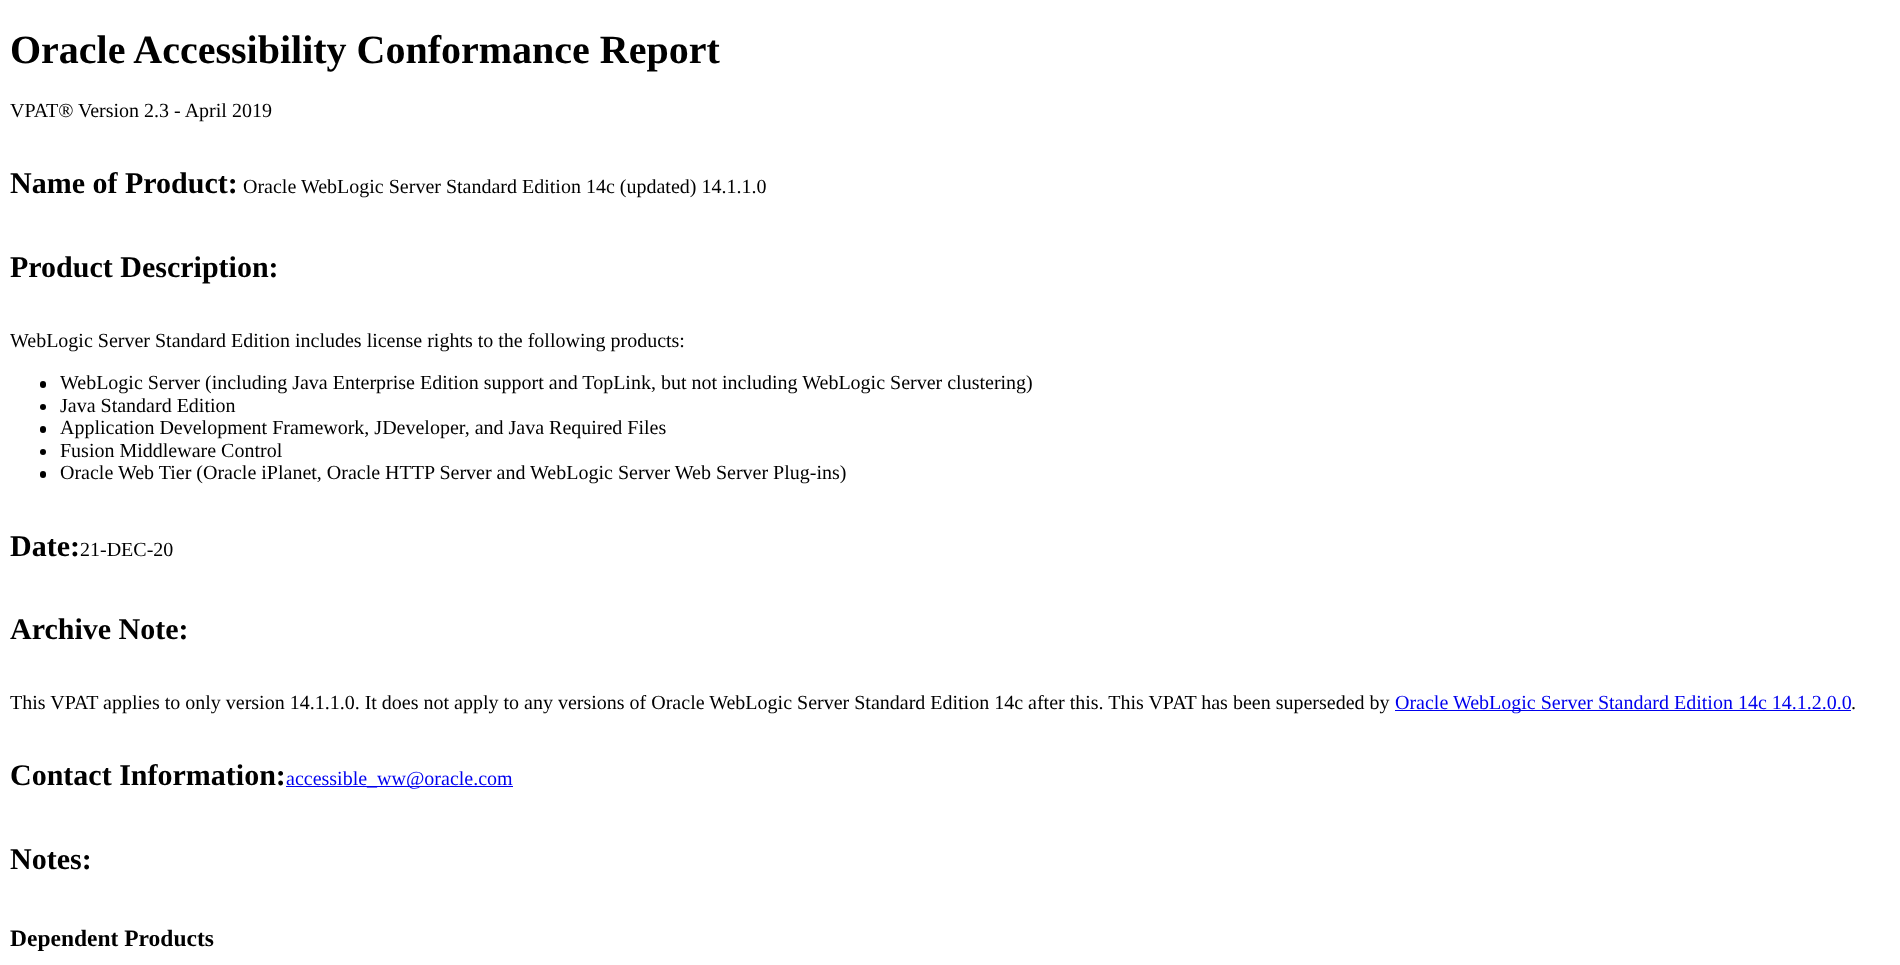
<svg xmlns="http://www.w3.org/2000/svg" width="1900" height="965">
	<rect width="100%" height="100%" fill="#FFFFFF" />
	<text x="10" y="63" font-family="Liberation Serif" font-size="40" font-weight="700" fill="#000000">Oracle Accessibility Conformance Report</text>
	<text x="10" y="117" font-family="Liberation Serif" font-size="20" fill="#000000">VPAT® Version 2.3 - April 2019</text>
	<text x="10" y="193" font-family="Liberation Serif" font-size="30" font-weight="700" fill="#000000">Name of Product:</text>
	<text x="243" y="193" font-family="Liberation Serif" font-size="20" fill="#000000">Oracle WebLogic Server Standard Edition 14c (updated) 14.1.1.0</text>
	<text x="10" y="277" font-family="Liberation Serif" font-size="30" font-weight="700" fill="#000000">Product Description:</text>
	<text x="10" y="347" font-family="Liberation Serif" font-size="20" fill="#000000">WebLogic Server Standard Edition includes license rights to the following products:</text>
	<rect x="40" y="381" width="6" height="7" rx="3" fill="#000000" />
	<text x="60" y="389" font-family="Liberation Serif" font-size="20" fill="#000000">WebLogic Server (including Java Enterprise Edition support and TopLink, but not including WebLogic Server clustering)</text>
	<circle cx="43" cy="407" r="3" fill="#000000" />
	<text x="60" y="412" font-family="Liberation Serif" font-size="20" fill="#000000">Java Standard Edition</text>
	<rect x="40" y="426" width="6" height="7" rx="3" fill="#000000" />
	<text x="60" y="434" font-family="Liberation Serif" font-size="20" fill="#000000">Application Development Framework, JDeveloper, and Java Required Files</text>
	<circle cx="43" cy="452" r="3" fill="#000000" />
	<text x="60" y="457" font-family="Liberation Serif" font-size="20" fill="#000000">Fusion Middleware Control</text>
	<rect x="40" y="471" width="6" height="7" rx="3" fill="#000000" />
	<text x="60" y="479" font-family="Liberation Serif" font-size="20" fill="#000000">Oracle Web Tier (Oracle iPlanet, Oracle HTTP Server and WebLogic Server Web Server Plug-ins)</text>
	<text x="10" y="556" font-family="Liberation Serif" font-size="30" font-weight="700" fill="#000000">Date:</text>
	<text x="80" y="556" font-family="Liberation Serif" font-size="20" fill="#000000">21-DEC-20</text>
	<text x="10" y="639" font-family="Liberation Serif" font-size="30" font-weight="700" fill="#000000">Archive Note:</text>
	<text x="10" y="709" font-family="Liberation Serif" font-size="20" fill="#000000">This VPAT applies to only version 14.1.1.0. It does not apply to any versions of Oracle WebLogic Server Standard Edition 14c after this. This VPAT has been superseded by</text>
	<rect x="1395" y="710" width="456" height="1" fill="#0000EE" />
	<text x="1395" y="709" font-family="Liberation Serif" font-size="20" fill="#0000EE">Oracle WebLogic Server Standard Edition 14c 14.1.2.0.0</text>
	<text x="1851" y="709" font-family="Liberation Serif" font-size="20" fill="#000000">.</text>
	<text x="10" y="785" font-family="Liberation Serif" font-size="30" font-weight="700" fill="#000000">Contact Information:</text>
	<rect x="286" y="786" width="227" height="1" fill="#0000EE" />
	<text x="286" y="785" font-family="Liberation Serif" font-size="20" fill="#0000EE">accessible_ww@oracle.com</text>
	<text x="10" y="869" font-family="Liberation Serif" font-size="30" font-weight="700" fill="#000000">Notes:</text>
	<text x="10" y="946" font-family="Liberation Serif" font-size="23.5" font-weight="700" fill="#000000">Dependent Products</text>
</svg>
